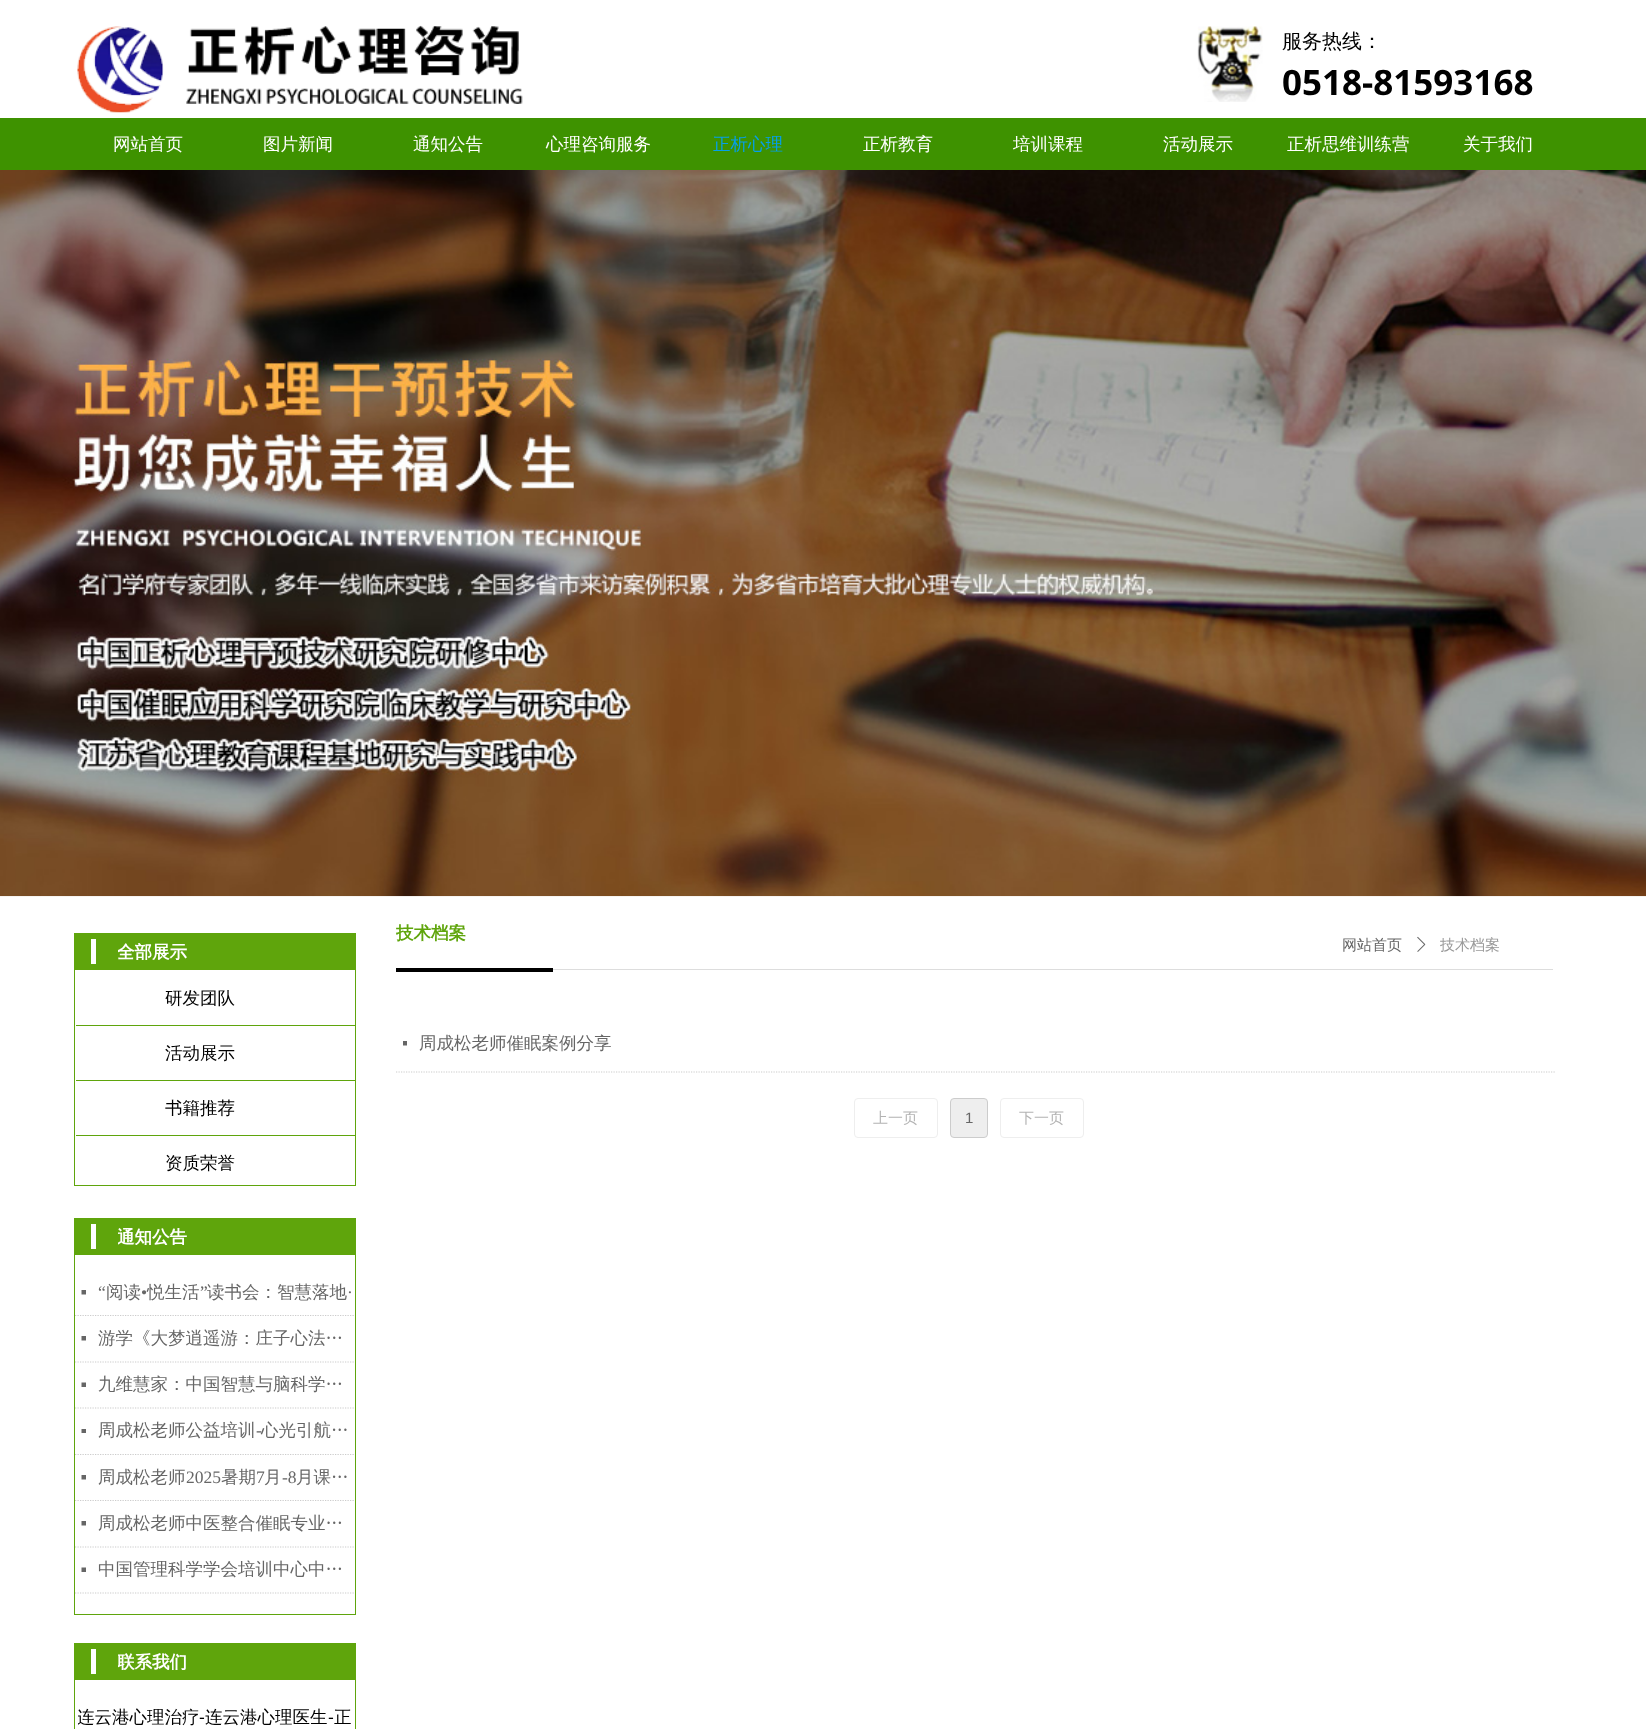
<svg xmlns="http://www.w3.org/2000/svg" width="1646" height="1729">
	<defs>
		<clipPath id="clip1"><rect x="118" y="943" width="88" height="17" /></clipPath>
		<clipPath id="clip2"><rect x="118" y="1228" width="88" height="17" /></clipPath>
		<clipPath id="clip3"><rect x="118" y="1653" width="88" height="17" /></clipPath>
		<clipPath id="clip4"><rect x="78" y="1701" width="275" height="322" /></clipPath>
		<clipPath id="clip5"><rect x="396" y="924" width="175" height="27" /></clipPath>
	</defs>
	<rect width="100%" height="100%" fill="#FFFFFF" />
	<image x="77" y="25" width="446" height="88" href="assets/img1.png" />
	<image x="1197" y="26" width="66" height="76" href="assets/img2.png" />
	<text x="1282" y="48" font-family="WenQuanYi Zen Hei" font-size="20" font-weight="500" fill="#000000">服务热线：</text>
	<text x="1282" y="95" font-family="Noto Sans" font-size="35" font-weight="700" fill="#000000">0518-81593168</text>
	<rect x="0" y="118" width="1646" height="52" fill="#3E9200" />
	<g font-family="WenQuanYi Zen Hei" font-size="17.5" font-weight="500" fill="#FFFFFF">
		<text x="113" y="150">网站首页</text>
		<text x="263" y="150">图片新闻</text>
		<text x="413" y="150">通知公告</text>
		<text x="546" y="150">心理咨询服务</text>
	</g>
	<text x="713" y="150" font-family="WenQuanYi Zen Hei" font-size="17.5" font-weight="500" fill="#059FE9">正析心理</text>
	<g font-family="WenQuanYi Zen Hei" font-size="17.5" font-weight="500" fill="#FFFFFF">
		<text x="863" y="150">正析教育</text>
		<text x="1013" y="150">培训课程</text>
		<text x="1163" y="150">活动展示</text>
		<text x="1287" y="150">正析思维训练营</text>
		<text x="1463" y="150">关于我们</text>
	</g>
	<image x="0" y="170" width="1646" height="727" href="assets/img3.png" />
	<rect x="74" y="933" width="282" height="36" fill="#5FA50C" />
	<rect x="91" y="939" width="5" height="25" fill="#FFFFFF" />
	<g clip-path="url(#clip1)">
		<text x="117" y="958" font-family="WenQuanYi Zen Hei" font-size="17.5" font-weight="700" fill="#FFFFFF">全部展示</text>
	</g>
	<rect x="74.5" y="969.5" width="281" height="216" fill="none" stroke="#5FA50C" />
	<text x="165" y="1004" font-family="WenQuanYi Zen Hei" font-size="17.5" font-weight="500" fill="#000000">研发团队</text>
	<rect x="76" y="1025" width="280" height="1" fill="#5FA50C" />
	<text x="165" y="1059" font-family="WenQuanYi Zen Hei" font-size="17.5" font-weight="500" fill="#000000">活动展示</text>
	<rect x="76" y="1080" width="280" height="1" fill="#5FA50C" />
	<text x="165" y="1114" font-family="WenQuanYi Zen Hei" font-size="17.5" font-weight="500" fill="#000000">书籍推荐</text>
	<rect x="76" y="1135" width="280" height="1" fill="#5FA50C" />
	<text x="165" y="1169" font-family="WenQuanYi Zen Hei" font-size="17.5" font-weight="500" fill="#000000">资质荣誉</text>
	<rect x="74" y="1218" width="282" height="36" fill="#5FA50C" />
	<rect x="91" y="1224" width="5" height="25" fill="#FFFFFF" />
	<g clip-path="url(#clip2)">
		<text x="117" y="1243" font-family="WenQuanYi Zen Hei" font-size="17.5" font-weight="700" fill="#FFFFFF">通知公告</text>
	</g>
	<rect x="74.5" y="1254.5" width="281" height="360" fill="none" stroke="#5FA50C" />
	<path d="M75 1315.5H355" fill="none" stroke="#CCCCCC" stroke-width="1.2" stroke-dasharray="1.25 1.25" />
	<path d="M81.5 1290H86V1294.5H81.5Z" fill="#666666" />
	<text x="98" y="1298" font-family="Liberation Serif" font-size="17.5" fill="#666666">“</text>
	<text x="106" y="1298" font-family="WenQuanYi Zen Hei" font-size="17.5" font-weight="500" fill="#666666">阅读</text>
	<text x="141" y="1298" font-family="Liberation Serif" font-size="17.5" fill="#666666">•</text>
	<text x="147" y="1298" font-family="WenQuanYi Zen Hei" font-size="17.5" font-weight="500" fill="#666666">悦生活</text>
	<text x="200" y="1298" font-family="Liberation Serif" font-size="17.5" fill="#666666">”</text>
	<text x="207" y="1298" font-family="WenQuanYi Zen Hei" font-size="17.5" font-weight="500" fill="#666666">读书会：智慧落地</text>
	<text x="347" y="1298" font-family="Liberation Serif" font-size="17.5" fill="#666666">·</text>
	<path d="M75 1362H355" fill="none" stroke="#CCCCCC" stroke-width="1.2" stroke-dasharray="1.25 1.25" />
	<path d="M81.5 1336H86V1340.5H81.5Z" fill="#666666" />
	<text x="98" y="1344" font-family="WenQuanYi Zen Hei" font-size="17.5" font-weight="500" fill="#666666">游学《大梦逍遥游：庄子心法…</text>
	<path d="M75 1408H355" fill="none" stroke="#CCCCCC" stroke-width="1.2" stroke-dasharray="1.25 1.25" />
	<path d="M81.5 1382.5H86V1387H81.5Z" fill="#666666" />
	<text x="98" y="1390" font-family="WenQuanYi Zen Hei" font-size="17.5" font-weight="500" fill="#666666">九维慧家：中国智慧与脑科学…</text>
	<path d="M75 1454.5H355" fill="none" stroke="#CCCCCC" stroke-width="1.2" stroke-dasharray="1.25 1.25" />
	<path d="M81.5 1429H86V1433H81.5Z" fill="#666666" />
	<text x="98" y="1436" font-family="WenQuanYi Zen Hei" font-size="17.5" font-weight="500" fill="#666666">周成松老师公益培训</text>
	<text x="256" y="1436" font-family="Liberation Serif" font-size="17.5" fill="#666666">-</text>
	<text x="261" y="1436" font-family="WenQuanYi Zen Hei" font-size="17.5" font-weight="500" fill="#666666">心光引航…</text>
	<path d="M75 1500.5H355" fill="none" stroke="#CCCCCC" stroke-width="1.2" stroke-dasharray="1.25 1.25" />
	<path d="M81.5 1475H86V1479.5H81.5Z" fill="#666666" />
	<text x="98" y="1483" font-family="WenQuanYi Zen Hei" font-size="17.5" font-weight="500" fill="#666666">周成松老师</text>
	<text x="186" y="1483" font-family="Liberation Serif" font-size="17.5" fill="#666666">2025</text>
	<text x="221" y="1483" font-family="WenQuanYi Zen Hei" font-size="17.5" font-weight="500" fill="#666666">暑期</text>
	<text x="256" y="1483" font-family="Liberation Serif" font-size="17.5" fill="#666666">7</text>
	<text x="264" y="1483" font-family="WenQuanYi Zen Hei" font-size="17.5" font-weight="500" fill="#666666">月</text>
	<text x="282" y="1483" font-family="Liberation Serif" font-size="17.5" fill="#666666">-8</text>
	<text x="296" y="1483" font-family="WenQuanYi Zen Hei" font-size="17.5" font-weight="500" fill="#666666">月课…</text>
	<path d="M75 1547H355" fill="none" stroke="#CCCCCC" stroke-width="1.2" stroke-dasharray="1.25 1.25" />
	<path d="M81.5 1521H86V1525.5H81.5Z" fill="#666666" />
	<text x="98" y="1529" font-family="WenQuanYi Zen Hei" font-size="17.5" font-weight="500" fill="#666666">周成松老师中医整合催眠专业…</text>
	<path d="M75 1593H355" fill="none" stroke="#CCCCCC" stroke-width="1.2" stroke-dasharray="1.25 1.25" />
	<path d="M81.5 1567.5H86V1572H81.5Z" fill="#666666" />
	<text x="98" y="1575" font-family="WenQuanYi Zen Hei" font-size="17.5" font-weight="500" fill="#666666">中国管理科学学会培训中心中…</text>
	<rect x="74" y="1643" width="282" height="36" fill="#5FA50C" />
	<rect x="91" y="1649" width="5" height="25" fill="#FFFFFF" />
	<g clip-path="url(#clip3)">
		<text x="117" y="1668" font-family="WenQuanYi Zen Hei" font-size="17.5" font-weight="700" fill="#FFFFFF">联系我们</text>
	</g>
	<rect x="74.5" y="1679.5" width="281" height="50" fill="none" stroke="#5FA50C" />
	<g clip-path="url(#clip4)">
		<text x="77" y="1723" font-family="WenQuanYi Zen Hei" font-size="17.5" font-weight="500" fill="#000000">连云港心理治疗</text>
	</g>
	<text x="199" y="1723" font-family="Liberation Sans" font-size="17.5" fill="#000000">-</text>
	<text x="205" y="1723" font-family="WenQuanYi Zen Hei" font-size="17.5" font-weight="500" fill="#000000">连云港心理医生</text>
	<text x="328" y="1723" font-family="Liberation Sans" font-size="17.5" fill="#000000">-</text>
	<text x="334" y="1723" font-family="WenQuanYi Zen Hei" font-size="17.5" font-weight="500" fill="#000000">正</text>
	<g clip-path="url(#clip5)">
		<text x="396" y="939" font-family="WenQuanYi Zen Hei" font-size="17.5" font-weight="700" fill="#5FA50C">技术档案</text>
	</g>
	<text x="1342" y="950" font-family="WenQuanYi Zen Hei" font-size="15" font-weight="500" fill="#666666">网站首页</text>
	<image x="1417" y="936" width="9" height="16" href="assets/img4.png" />
	<text x="1440" y="950" font-family="WenQuanYi Zen Hei" font-size="15" font-weight="500" fill="#999999">技术档案</text>
	<rect x="396" y="968" width="157" height="4" fill="#000000" />
	<rect x="553" y="969" width="1000" height="1" fill="#DDDDDD" />
	<path d="M396 1072H1555" fill="none" stroke="#CCCCCC" stroke-width="1.2" stroke-dasharray="1.25 1.25" />
	<path d="M403 1041H407V1045.5H403Z" fill="#666666" />
	<text x="419" y="1049" font-family="WenQuanYi Zen Hei" font-size="17.5" font-weight="500" fill="#666666">周成松老师催眠案例分享</text>
	<rect x="854.5" y="1098.5" width="83" height="39" rx="3.5" fill="none" stroke="#EEEEEE" />
	<text x="873" y="1123" font-family="WenQuanYi Zen Hei" font-size="15" font-weight="500" fill="#B3B3B3">上一页</text>
	<rect x="950.5" y="1098.5" width="37" height="39" rx="3.5" fill="#EEEEEE" stroke="#CCCCCC" />
	<text x="965" y="1123" font-family="Liberation Sans" font-size="15" fill="#666666">1</text>
	<rect x="1000.5" y="1098.5" width="83" height="39" rx="3.5" fill="none" stroke="#EEEEEE" />
	<text x="1019" y="1123" font-family="WenQuanYi Zen Hei" font-size="15" font-weight="500" fill="#B3B3B3">下一页</text>
</svg>
